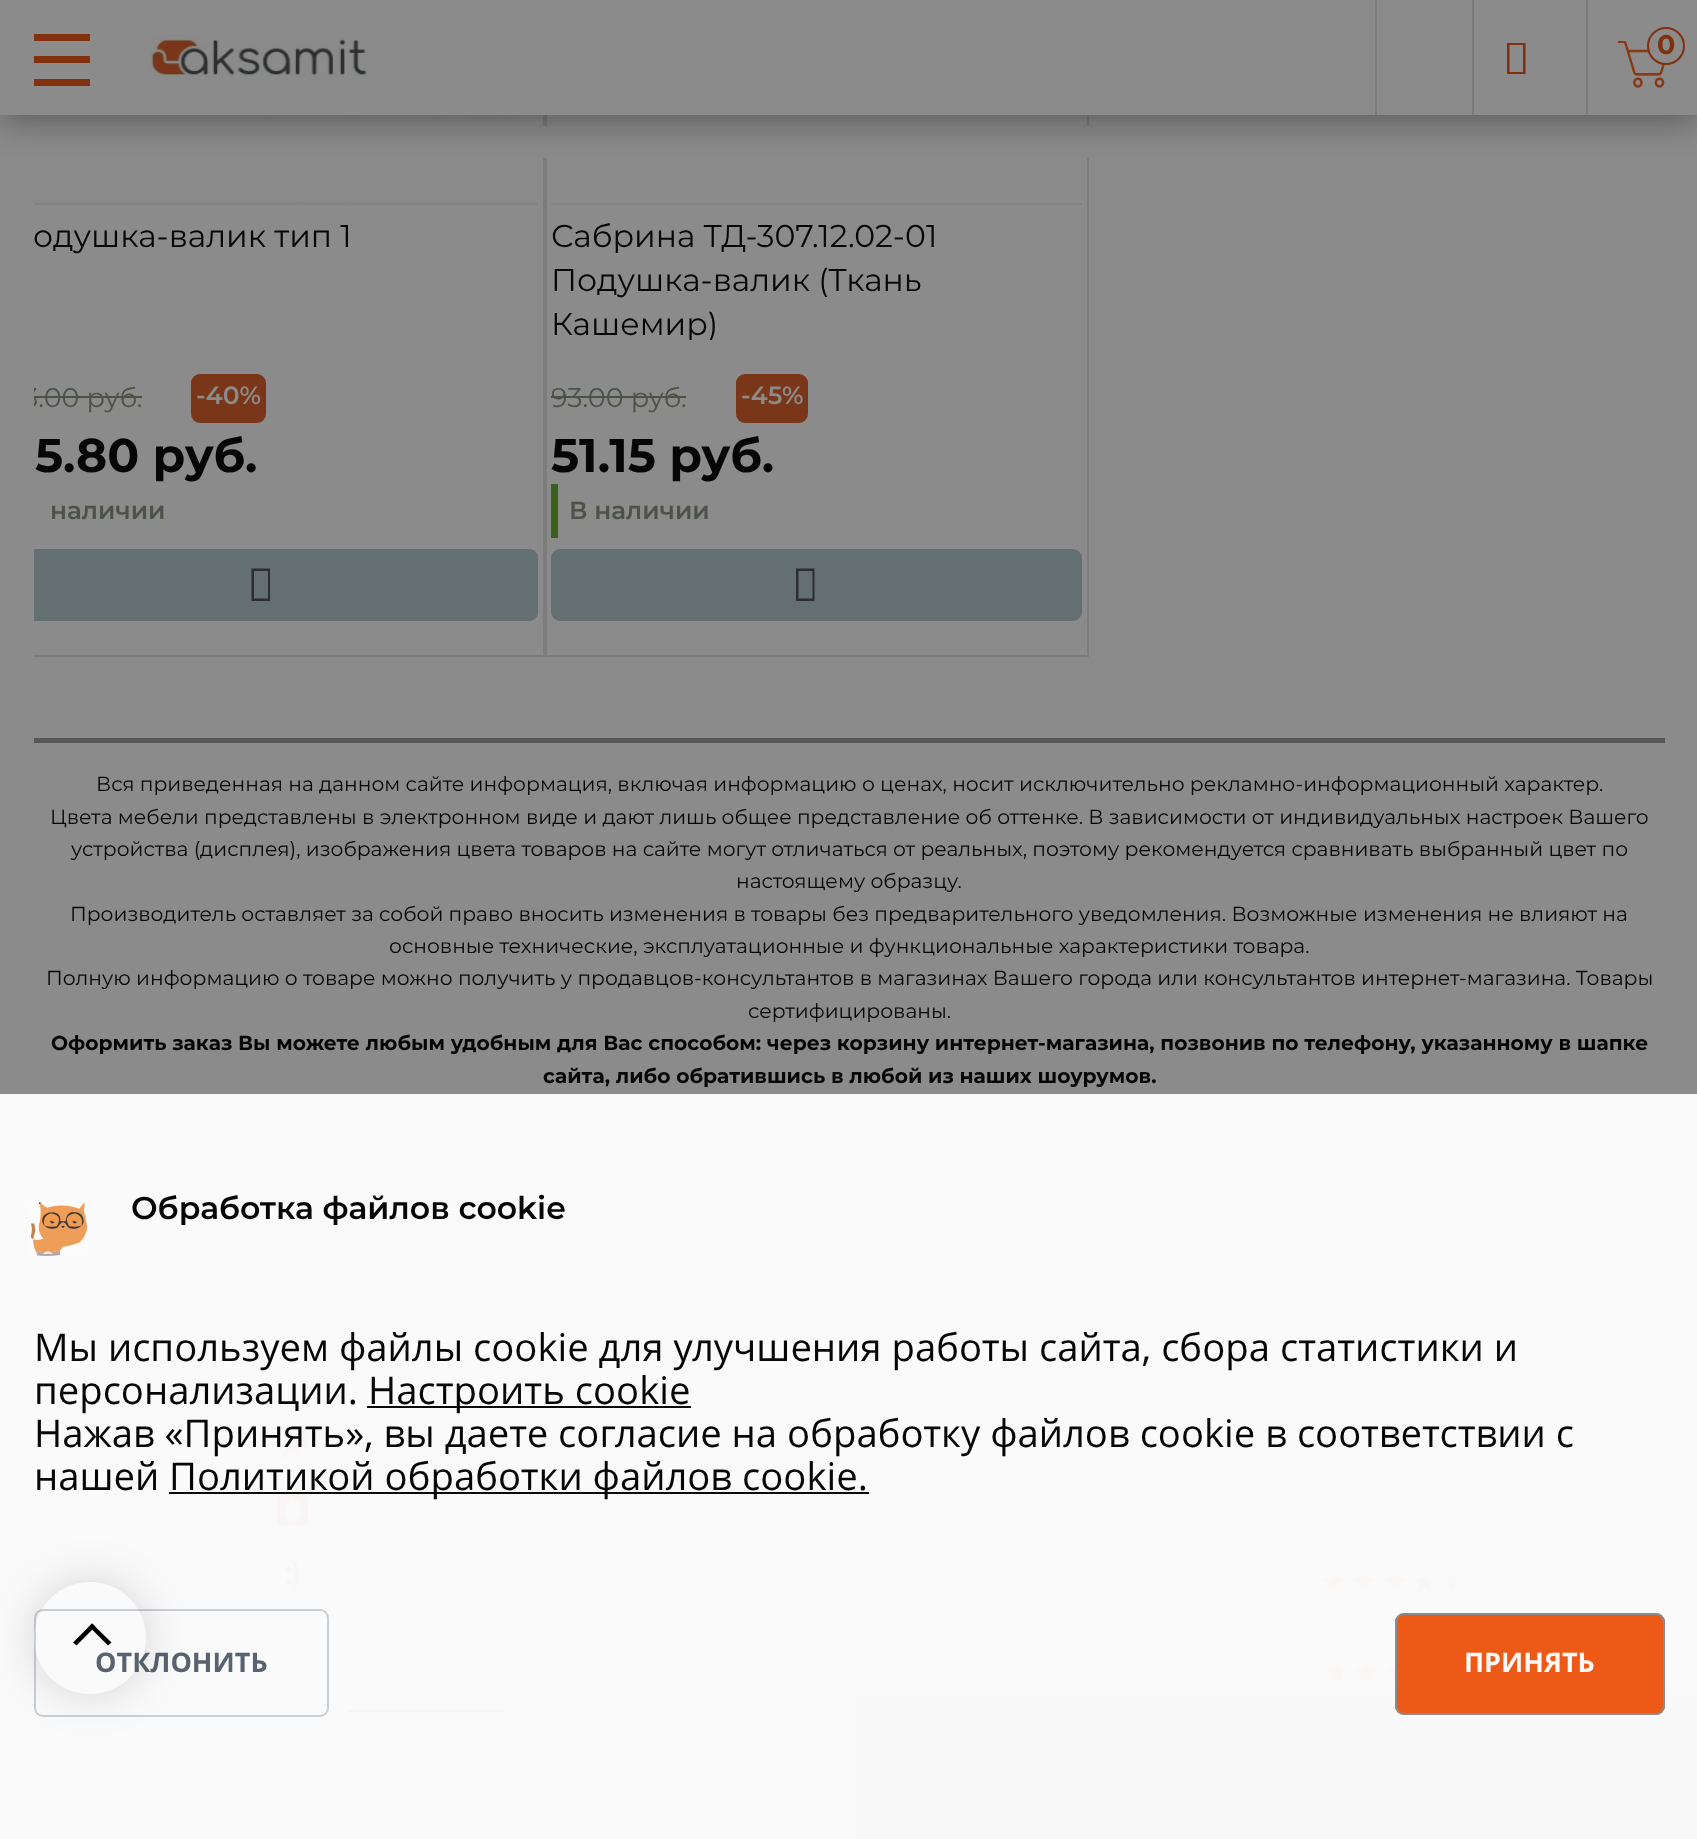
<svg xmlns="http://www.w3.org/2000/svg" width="1697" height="1839">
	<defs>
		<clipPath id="clip1"><rect x="34" y="0" width="1631" height="657" /></clipPath>
		<clipPath id="clip2"><rect x="551" y="216" width="531" height="124" /></clipPath>
		<clipPath id="clip3"><path d="M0 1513H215V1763H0ZM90 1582C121 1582 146 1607 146 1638C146 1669 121 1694 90 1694C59 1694 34 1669 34 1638C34 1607 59 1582 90 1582Z" clip-rule="evenodd" /></clipPath>
	</defs>
	<rect width="100%" height="100%" fill="#8B8B8B" />
	<rect x="0" y="1094" width="1697" height="600" fill="#FAFAFA" />
	<g clip-path="url(#clip1)">
		<rect x="1" y="-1" width="543" height="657" fill="none" stroke="#7C7C7C" stroke-width="2" />
	</g>
	<rect x="546" y="-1" width="542" height="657" fill="none" stroke="#7C7C7C" stroke-width="2" />
	<image x="551" y="115" width="532" height="88" href="assets/img5.png" />
	<rect x="543" y="126" width="546" height="32" fill="#8B8B8B" />
	<image x="33" y="115" width="505" height="85" href="assets/img3.png" />
	<rect x="0" y="7" width="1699" height="115" fill="#060606" fill-opacity="0.35" filter="blur(17px)" />
	<rect x="0" y="0" width="1697" height="115" fill="#8B8B8B" />
	<rect x="34" y="34" width="56" height="7" fill="#81310D" />
	<rect x="34" y="56" width="56" height="7" fill="#81310D" />
	<rect x="34" y="79" width="56" height="7" fill="#81310D" />
	<image x="150" y="36" width="219" height="45" href="assets/img1.png" />
	<rect x="1375" y="0" width="2" height="115" fill="#7B7B7B" />
	<rect x="1472" y="0" width="2" height="115" fill="#7B7B7B" />
	<path d="M1507 74V43H1525.5V74ZM1509.5 72H1523V45H1509.5Z" fill="#81310D" />
	<rect x="1586" y="0" width="2" height="115" fill="#7B7B7B" />
	<image x="1618" y="41" width="47" height="47" href="assets/img2.png" />
	<circle cx="1666" cy="46" r="18" fill="#8B8B8B" stroke="#81300D" stroke-width="2" />
	<text x="1657" y="54" font-family="Montserrat" font-size="27" font-weight="700" fill="#81300D">0</text>
	<rect x="34" y="203" width="504" height="2" fill="#838381" />
	<image x="33" y="200" width="505" height="3" href="assets/img4.png" />
	<text x="33" y="247" font-family="Montserrat" font-size="31.5" fill="#060606">одушка-валик тип 1</text>
	<g clip-path="url(#clip1)">
		<text x="23" y="407" font-family="Montserrat" font-size="27" fill="#4C5247">3.00 руб.</text>
	</g>
	<rect x="34" y="396" width="108" height="2" fill="#4C5247" />
	<rect x="191" y="374" width="75" height="49" rx="9" fill="#7A3619" />
	<text x="196" y="404" font-family="Montserrat" font-size="25" font-weight="600" fill="#8B8B8B">-40%</text>
	<text x="35" y="472" font-family="Montserrat" font-size="47.25" font-weight="700" fill="#060606">5.80 руб.</text>
	<text x="50" y="519" font-family="Montserrat" font-size="24.75" font-weight="600" fill="#4C5247">наличии</text>
	<path d="M34 549H529C534 549 538 553 538 558V612C538 617 534 621 529 621H34Z" fill="#646F71" />
	<g clip-path="url(#clip1)">
		<rect x="8" y="550" width="529" height="70" rx="8" fill="none" stroke="#646F71" stroke-width="2" />
	</g>
	<path d="M251.5 601V568.5H270V601ZM254 598.5H268V571H254Z" fill="#2C2D31" />
	<rect x="551" y="203" width="531" height="2" fill="#838381" />
	<g font-family="Montserrat" font-size="31.5" fill="#060606">
		<text x="551" y="247">Сабрина ТД-307.12.02-01</text>
		<text x="551" y="291">Подушка-валик (Ткань</text>
	</g>
	<g clip-path="url(#clip2)">
		<text x="551" y="335" font-family="Montserrat" font-size="31.5" fill="#060606">Кашемир)</text>
	</g>
	<text x="551" y="407" font-family="Montserrat" font-size="27" fill="#4C5247">93.00 руб.</text>
	<rect x="551" y="396" width="135" height="2" fill="#4C5247" />
	<rect x="736" y="374" width="72" height="49" rx="9" fill="#7A3619" />
	<text x="741" y="404" font-family="Montserrat" font-size="25" font-weight="600" fill="#8B8B8B">-45%</text>
	<text x="551" y="472" font-family="Montserrat" font-size="47.25" font-weight="700" fill="#060606">51.15 руб.</text>
	<text x="569" y="519" font-family="Montserrat" font-size="24.75" font-weight="600" fill="#4C5247">В наличии</text>
	<rect x="551" y="484" width="7" height="54" fill="#3A5F1B" />
	<rect x="552" y="550" width="529" height="70" rx="8" fill="#646F71" stroke="#646F71" stroke-width="2" />
	<path d="M796 601V568.5H814.5V601ZM798.5 598.5H812.5V571H798.5Z" fill="#2C2D31" />
	<rect x="0" y="1694" width="851" height="145" fill="#FAFAFA" />
	<rect x="347" y="1710" width="157" height="2" fill="#F5F5F5" />
	<rect x="851" y="1694" width="846" height="145" fill="#F9F9F9" />
	<image x="31" y="1202" width="57" height="54" href="assets/img6.png" />
	<text x="131" y="1219" font-family="Montserrat" font-size="31.5" font-weight="600" fill="#060606">Обработка файлов cookie</text>
	<g font-family="Open Sans" font-size="38.25" fill="#060606">
		<text x="34" y="1361">Мы используем файлы cookie для улучшения работы сайта, сбора статистики и</text>
		<text x="34" y="1404">персонализации.</text>
	</g>
	<rect x="367" y="1406" width="324" height="2" fill="#0A0A0A" />
	<text x="368" y="1404" font-family="Open Sans" font-size="38.25" fill="#060606">Настроить cookie</text>
	<image x="279" y="1426" width="30" height="33" href="assets/img7.png" />
	<g font-family="Open Sans" font-size="38.25" fill="#060606">
		<text x="34" y="1447">Нажав «Принять», вы даете согласие на обработку файлов cookie в соответствии с</text>
		<text x="34" y="1490">нашей</text>
	</g>
	<rect x="169" y="1492" width="700" height="2" fill="#0A0A0A" />
	<image x="276" y="1494" width="33" height="32" href="assets/img8.png" />
	<text x="169" y="1490" font-family="Open Sans" font-size="38.25" fill="#060606">Политикой обработки файлов cookie.</text>
	<rect x="35" y="1610" width="293" height="106" rx="8" fill="none" stroke="#C6CDD3" stroke-opacity="0.96" stroke-width="2" />
	<text x="95" y="1672" font-family="Open Sans" font-size="27" font-weight="700" fill="#59636F">ОТКЛОНИТЬ</text>
	<image x="1386" y="1661" width="23" height="22" href="assets/img16.png" />
	<image x="1415" y="1661" width="23" height="22" href="assets/img14.png" />
	<image x="1445" y="1661" width="23" height="22" href="assets/img17.png" />
	<rect x="1395" y="1613" width="270" height="102" rx="9" fill="#EC520D" fill-opacity="0.96" />
	<rect x="1396" y="1614" width="268" height="100" rx="8" fill="none" stroke="#868D95" stroke-opacity="0.96" stroke-width="2" />
	<text x="1464" y="1672" font-family="Open Sans" font-size="27" font-weight="700" fill="#FEF8F6">ПРИНЯТЬ</text>
	<rect x="34" y="738" width="1631" height="5" fill="#565656" />
	<g font-family="Montserrat" font-size="20.25" fill="#060606">
		<text x="96" y="791">Вся приведенная на данном сайте информация, включая информацию о ценах, носит исключительно рекламно-информационный характер.</text>
		<text x="50" y="824">Цвета мебели представлены в электронном виде и дают лишь общее представление об оттенке. В зависимости от индивидуальных настроек Вашего</text>
		<text x="71" y="856">устройства (дисплея), изображения цвета товаров на сайте могут отличаться от реальных, поэтому рекомендуется сравнивать выбранный цвет по</text>
		<text x="736" y="888">настоящему образцу.</text>
		<text x="70" y="921">Производитель оставляет за собой право вносить изменения в товары без предварительного уведомления. Возможные изменения не влияют на</text>
		<text x="389" y="953">основные технические, эксплуатационные и функциональные характеристики товара.</text>
		<text x="46" y="985">Полную информацию о товаре можно получить у продавцов-консультантов в магазинах Вашего города или консультантов интернет-магазина. Товары</text>
		<text x="748" y="1018">сертифицированы.</text>
	</g>
	<g font-family="Montserrat" font-size="20.25" font-weight="700" fill="#060606">
		<text x="51" y="1050">Оформить заказ Вы можете любым удобным для Вас способом: через корзину интернет-магазина, позвонив по телефону, указанному в шапке</text>
		<text x="543" y="1083">сайта, либо обратившись в любой из наших шоурумов.</text>
	</g>
	<image x="285" y="1559" width="15" height="32" href="assets/img9.png" />
	<image x="1323" y="1571" width="23" height="20" href="assets/img10.png" />
	<image x="1352" y="1571" width="23" height="20" href="assets/img11.png" />
	<image x="1384" y="1571" width="22" height="20" href="assets/img12.png" />
	<image x="1413" y="1571" width="23" height="20" href="assets/img10.png" />
	<image x="1443" y="1571" width="23" height="20" href="assets/img13.png" />
	<image x="1325" y="1661" width="23" height="22" href="assets/img14.png" />
	<image x="1355" y="1661" width="22" height="22" href="assets/img15.png" />
	<g clip-path="url(#clip3)">
		<rect x="34" y="1582" width="112" height="112" rx="56" fill="#000000" fill-opacity="0.15" filter="blur(22.5px)" />
	</g>
	<path d="M92 1623.5L111.5 1642.5L108 1645.5L89 1626.5Z" fill="#000000" />
	<path d="M92 1623.5L95.5 1626.5L76.5 1645.5L73 1642.5Z" fill="#000000" />
</svg>
